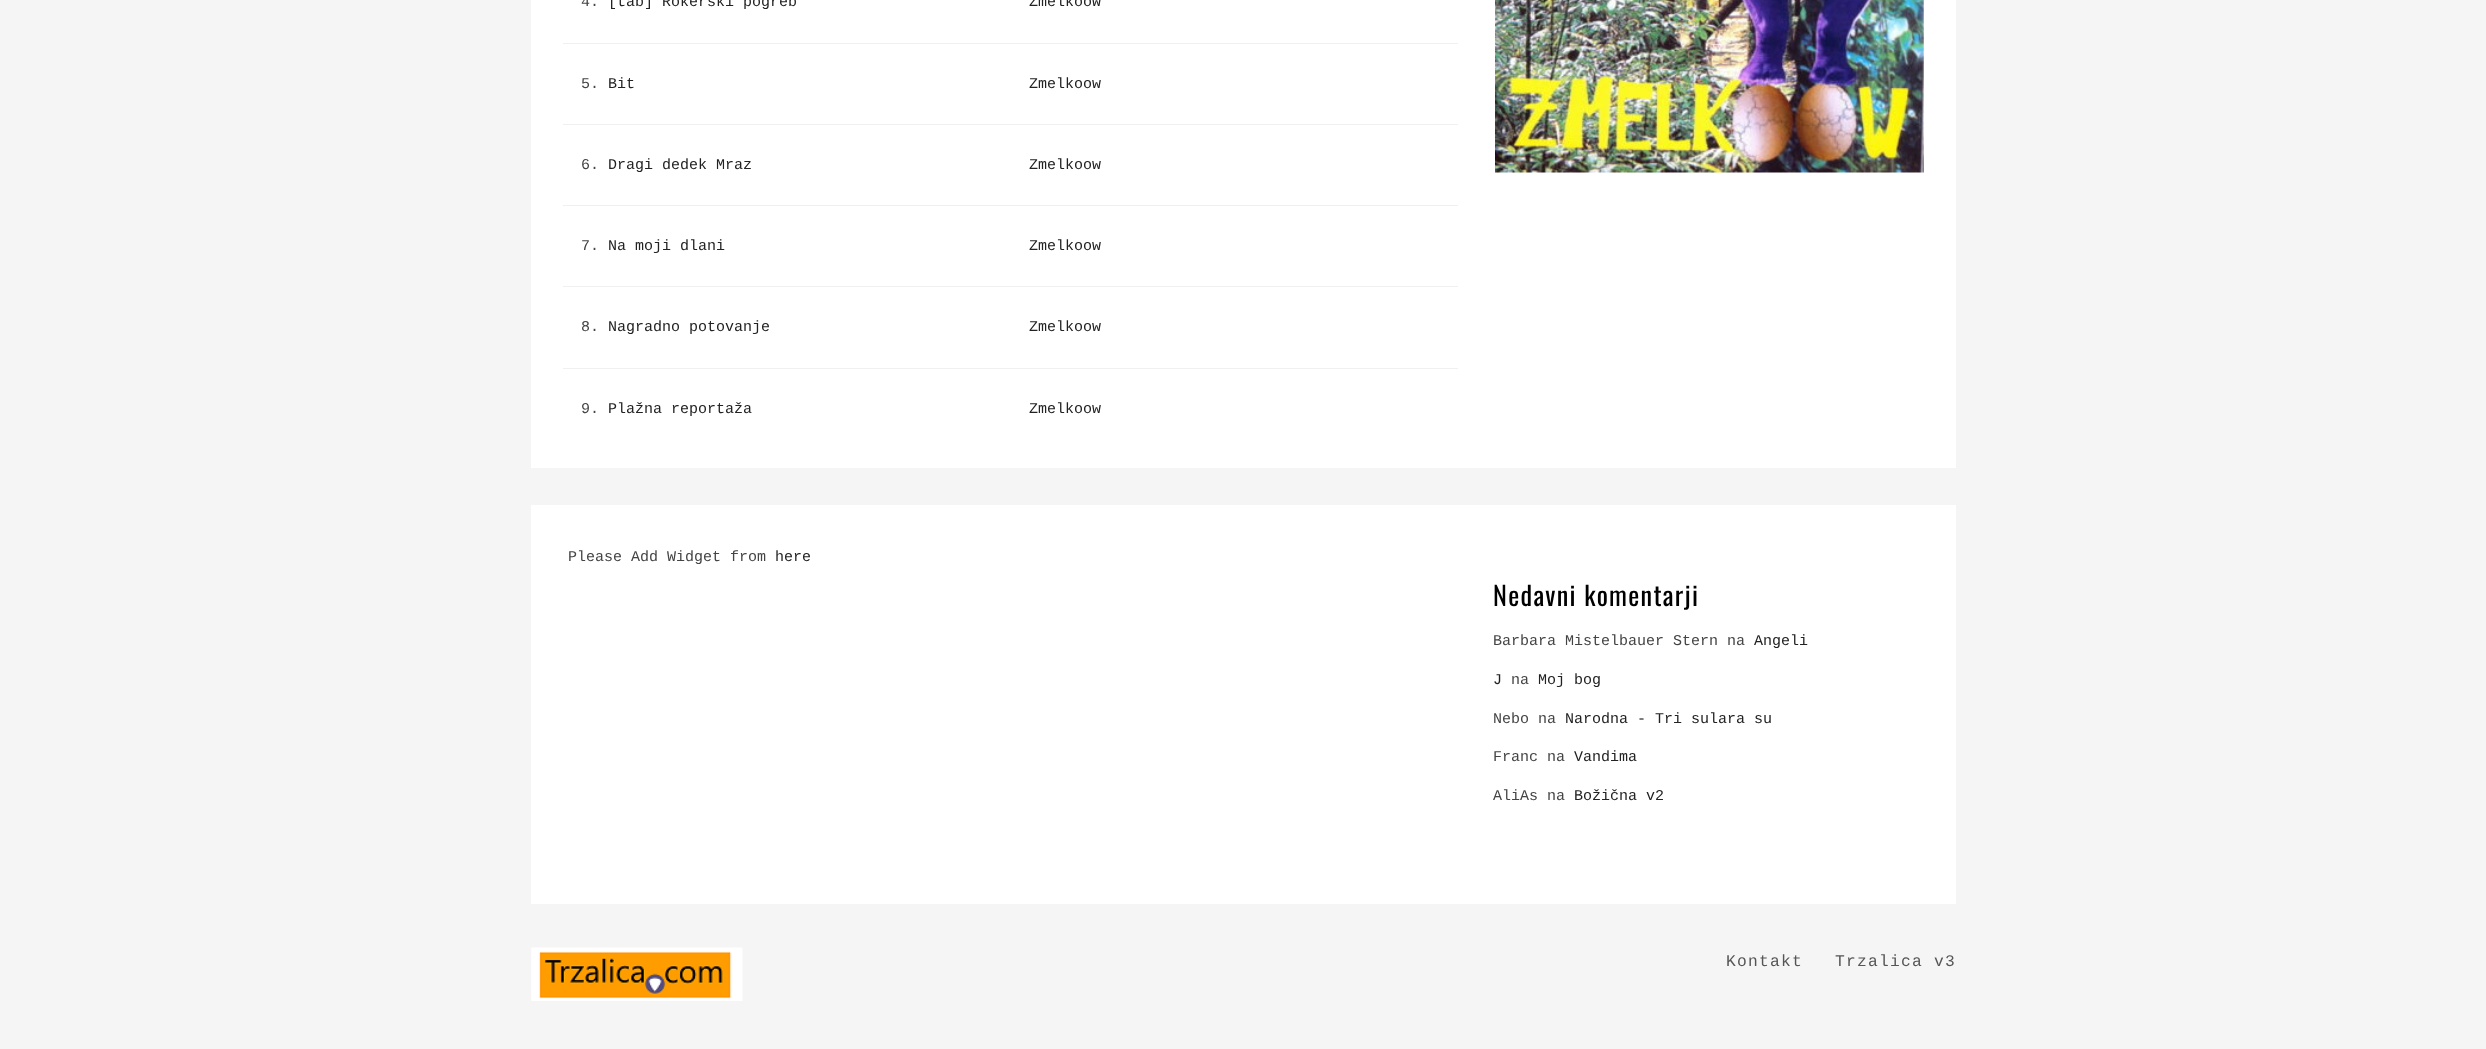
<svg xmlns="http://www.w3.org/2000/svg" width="2486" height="1049">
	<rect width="100%" height="100%" fill="#F5F5F5" />
	<rect x="531" y="0" width="1425" height="468" fill="#FFFFFF" />
	<rect x="563" y="43" width="895" height="1" fill="#F0F0F0" />
	<text x="581" y="6" font-family="Liberation Mono" font-size="15" fill="#444444">4.</text>
	<g font-family="Liberation Mono" font-size="15" fill="#222222">
		<text x="608" y="6">[tab] Rokerski pogreb</text>
		<text x="1029" y="6">Zmelkoow</text>
	</g>
	<rect x="563" y="124" width="895" height="1" fill="#F0F0F0" />
	<text x="581" y="88" font-family="Liberation Mono" font-size="15" fill="#444444">5.</text>
	<g font-family="Liberation Mono" font-size="15" fill="#222222">
		<text x="608" y="88">Bit</text>
		<text x="1029" y="88">Zmelkoow</text>
	</g>
	<rect x="563" y="205" width="895" height="1" fill="#F0F0F0" />
	<text x="581" y="169" font-family="Liberation Mono" font-size="15" fill="#444444">6.</text>
	<g font-family="Liberation Mono" font-size="15" fill="#222222">
		<text x="608" y="169">Dragi dedek Mraz</text>
		<text x="1029" y="169">Zmelkoow</text>
	</g>
	<rect x="563" y="286" width="895" height="1" fill="#F0F0F0" />
	<text x="581" y="250" font-family="Liberation Mono" font-size="15" fill="#444444">7.</text>
	<g font-family="Liberation Mono" font-size="15" fill="#222222">
		<text x="608" y="250">Na moji dlani</text>
		<text x="1029" y="250">Zmelkoow</text>
	</g>
	<rect x="563" y="368" width="895" height="1" fill="#F0F0F0" />
	<text x="581" y="331" font-family="Liberation Mono" font-size="15" fill="#444444">8.</text>
	<g font-family="Liberation Mono" font-size="15" fill="#222222">
		<text x="608" y="331">Nagradno potovanje</text>
		<text x="1029" y="331">Zmelkoow</text>
	</g>
	<text x="581" y="413" font-family="Liberation Mono" font-size="15" fill="#444444">9.</text>
	<g font-family="Liberation Mono" font-size="15" fill="#222222">
		<text x="608" y="413">Plažna reportaža</text>
		<text x="1029" y="413">Zmelkoow</text>
	</g>
	<image x="1495" y="0" width="429" height="173" href="assets/img1.png" />
	<rect x="531" y="505" width="1425" height="399" fill="#FFFFFF" />
	<text x="568" y="561" font-family="Liberation Mono" font-size="15" fill="#444444">Please Add Widget from</text>
	<text x="775" y="561" font-family="Liberation Mono" font-size="15" fill="#222222">here</text>
	<text x="1493" y="606" font-family="Oswald" font-size="26.25" letter-spacing="1.3" fill="#000000">Nedavni komentarji</text>
	<text x="1493" y="645" font-family="Liberation Mono" font-size="15" fill="#444444">Barbara Mistelbauer Stern na</text>
	<g font-family="Liberation Mono" font-size="15" fill="#222222">
		<text x="1754" y="645">Angeli</text>
		<text x="1493" y="684">J</text>
	</g>
	<text x="1511" y="684" font-family="Liberation Mono" font-size="15" fill="#444444">na</text>
	<text x="1538" y="684" font-family="Liberation Mono" font-size="15" fill="#222222">Moj bog</text>
	<text x="1493" y="723" font-family="Liberation Mono" font-size="15" fill="#444444">Nebo na</text>
	<text x="1565" y="723" font-family="Liberation Mono" font-size="15" fill="#222222">Narodna - Tri sulara su</text>
	<text x="1493" y="761" font-family="Liberation Mono" font-size="15" fill="#444444">Franc na</text>
	<text x="1574" y="761" font-family="Liberation Mono" font-size="15" fill="#222222">Vandima</text>
	<text x="1493" y="800" font-family="Liberation Mono" font-size="15" fill="#444444">AliAs na</text>
	<text x="1574" y="800" font-family="Liberation Mono" font-size="15" fill="#222222">Božična v2</text>
	<image x="531" y="947" width="212" height="54" href="assets/img2.png" />
	<g font-family="Liberation Mono" font-size="16.25" letter-spacing="1.25" fill="#555555">
		<text x="1726" y="966">Kontakt</text>
		<text x="1835" y="966">Trzalica v3</text>
	</g>
</svg>
